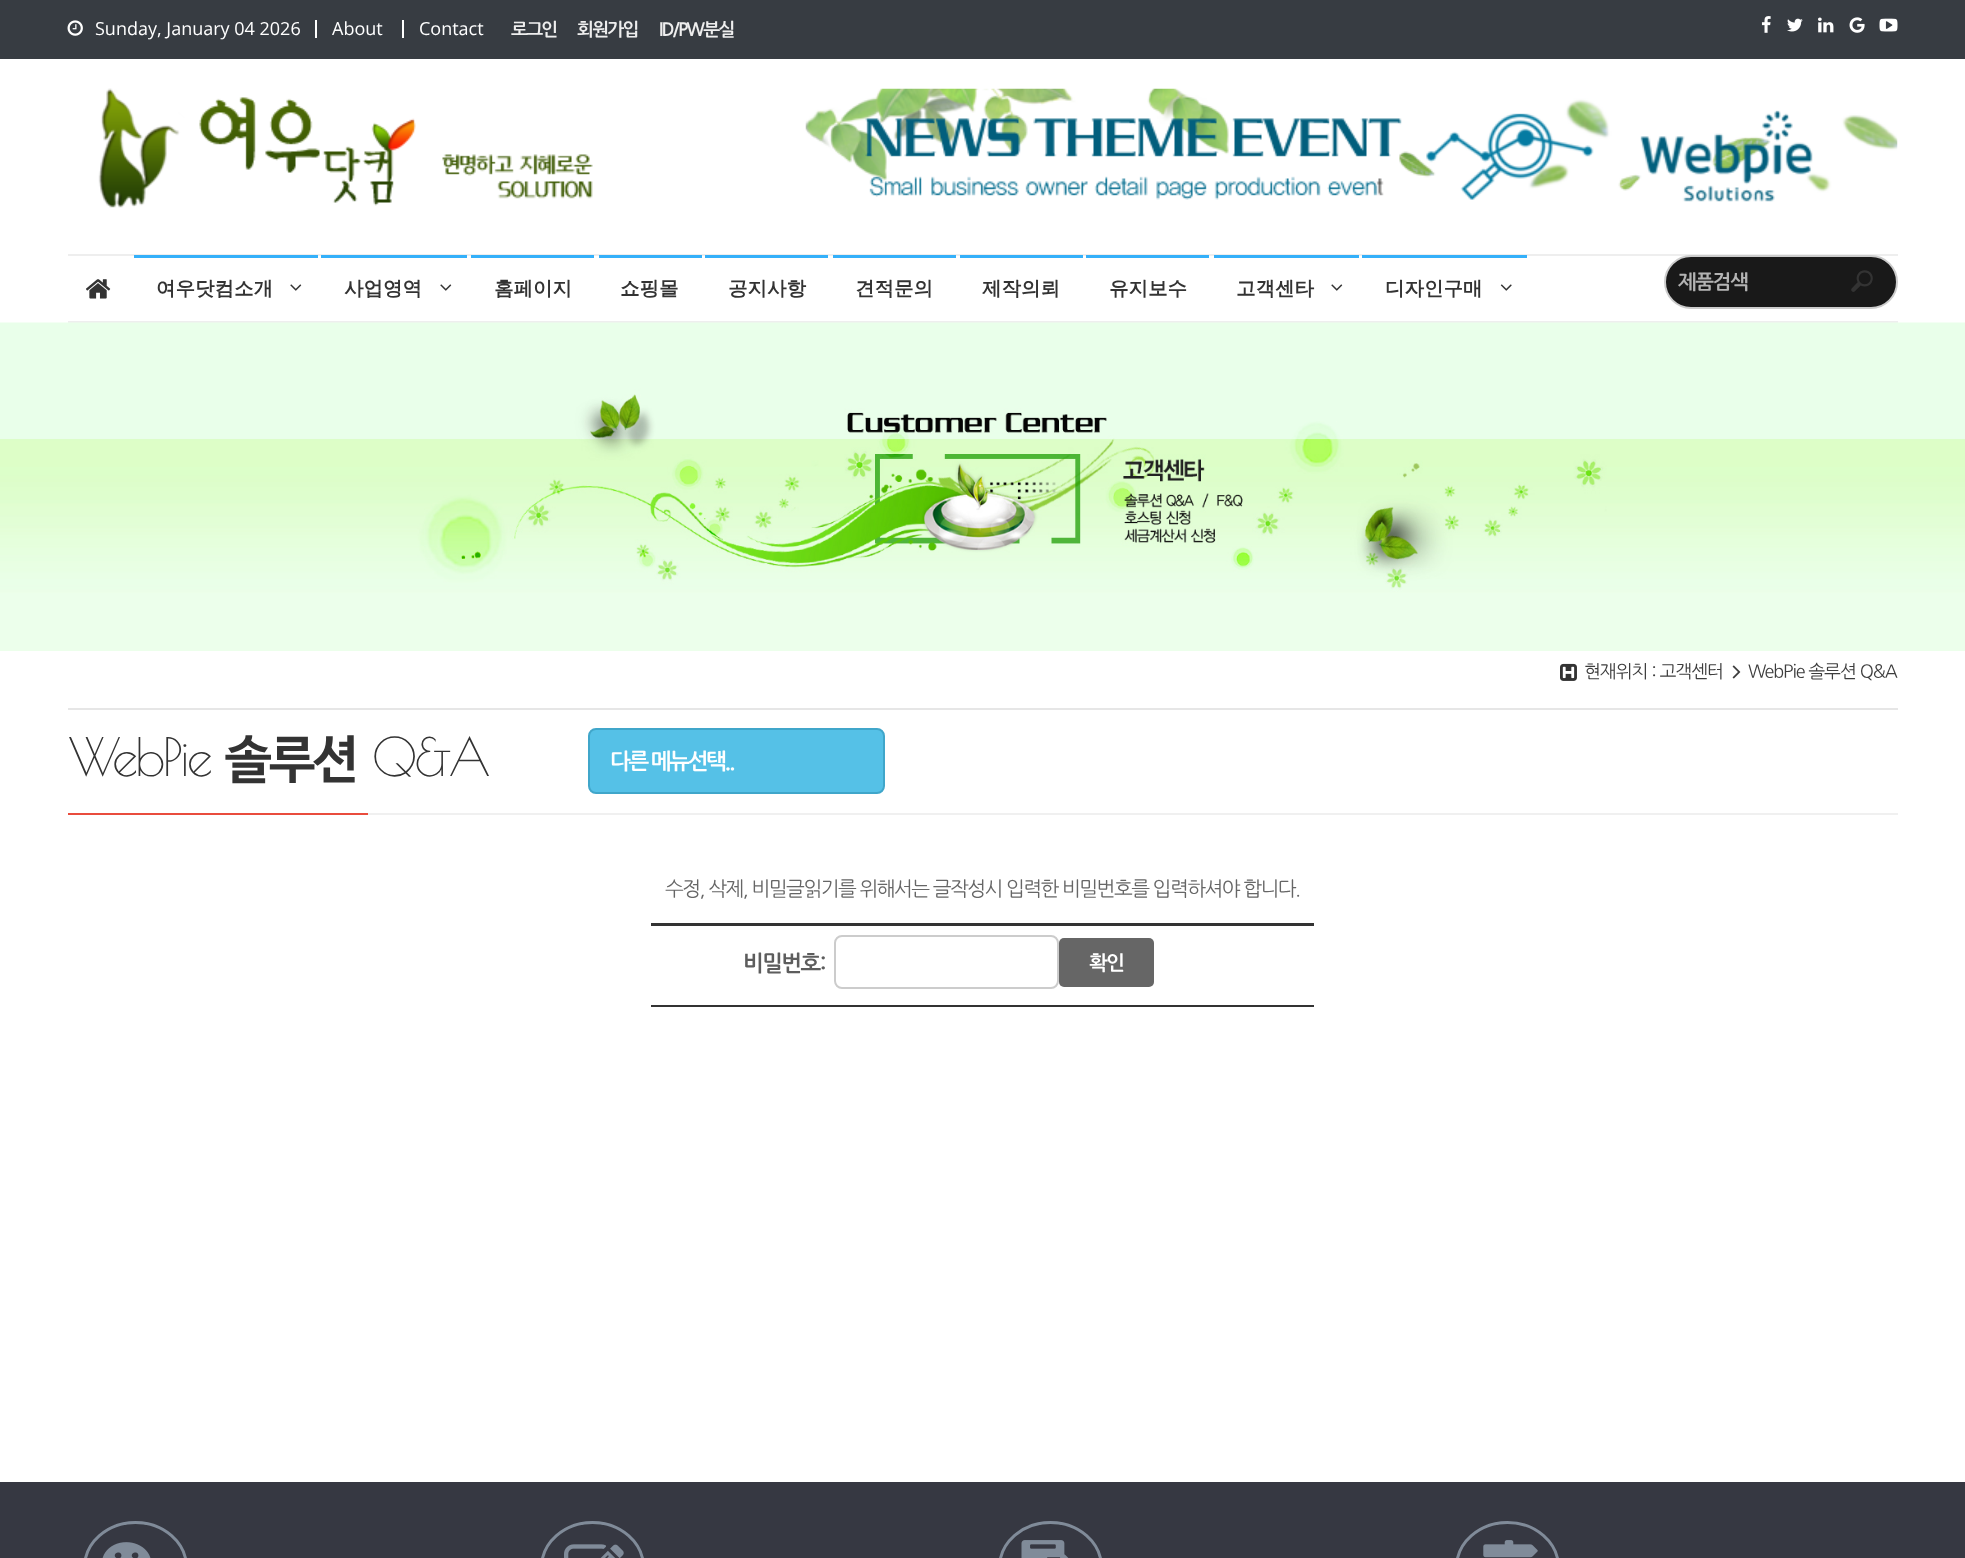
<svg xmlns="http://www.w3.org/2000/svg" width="1965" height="1558">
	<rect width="100%" height="100%" fill="#FFFFFF" />
	<rect x="0" y="0" width="1965" height="59" fill="#373C42" />
	<image x="67" y="20" width="16" height="16" href="assets/img1.png" />
	<text x="95" y="35" font-family="Open Sans" font-size="18" fill="#FFFFFF">Sunday, January 04 2026</text>
	<rect x="315" y="20" width="2" height="18" fill="#FFFFFF" />
	<text x="332" y="35" font-family="Open Sans" font-size="18" fill="#FFFFFF">About</text>
	<rect x="402" y="20" width="2" height="18" fill="#FFFFFF" />
	<text x="419" y="35" font-family="Open Sans" font-size="18" fill="#FFFFFF">Contact</text>
	<g font-family="NanumGothic" font-size="18" font-weight="700" letter-spacing="-1.75" fill="#EEEEEE">
		<text x="511" y="35">로그인</text>
		<text x="577" y="35">회원가입</text>
		<text x="659" y="35">ID/PW분실</text>
	</g>
	<image x="1761" y="16" width="10" height="17" href="assets/img2.png" />
	<image x="1787" y="18" width="16" height="14" href="assets/img3.png" />
	<image x="1818" y="17" width="16" height="16" href="assets/img4.png" />
	<image x="1849" y="17" width="16" height="16" href="assets/img5.png" />
	<image x="1879" y="18" width="19" height="14" href="assets/img6.png" />
	<image x="98" y="88" width="495" height="120" href="assets/img7.png" />
	<image x="805" y="88" width="1093" height="114" href="assets/img8.png" />
	<rect x="68" y="254" width="1830" height="2" fill="#EEEEEE" />
	<rect x="68" y="321" width="1830" height="2" fill="#EEEEEE" />
	<image x="86" y="279" width="25" height="20" href="assets/img9.png" />
	<rect x="134" y="255" width="184" height="3" fill="#34B0FA" />
	<text x="156" y="295" font-family="WenQuanYi Zen Hei" font-size="19.5" font-weight="700" fill="#333333">여우닷컴소개</text>
	<image x="290" y="284" width="12" height="7" href="assets/img10.png" />
	<rect x="321" y="255" width="146" height="3" fill="#34B0FA" />
	<text x="344" y="295" font-family="WenQuanYi Zen Hei" font-size="19.5" font-weight="700" fill="#333333">사업영역</text>
	<image x="440" y="284" width="12" height="7" href="assets/img10.png" />
	<rect x="471" y="255" width="123" height="3" fill="#34B0FA" />
	<text x="494" y="295" font-family="WenQuanYi Zen Hei" font-size="19.5" font-weight="700" fill="#333333">홈페이지</text>
	<rect x="599" y="255" width="103" height="3" fill="#34B0FA" />
	<text x="620" y="295" font-family="WenQuanYi Zen Hei" font-size="19.5" font-weight="700" fill="#333333">쇼핑몰</text>
	<rect x="705" y="255" width="123" height="3" fill="#34B0FA" />
	<text x="728" y="295" font-family="WenQuanYi Zen Hei" font-size="19.5" font-weight="700" fill="#333333">공지사항</text>
	<rect x="833" y="255" width="123" height="3" fill="#34B0FA" />
	<text x="855" y="295" font-family="WenQuanYi Zen Hei" font-size="19.5" font-weight="700" fill="#333333">견적문의</text>
	<rect x="960" y="255" width="123" height="3" fill="#34B0FA" />
	<text x="982" y="295" font-family="WenQuanYi Zen Hei" font-size="19.5" font-weight="700" fill="#333333">제작의뢰</text>
	<rect x="1086" y="255" width="123" height="3" fill="#34B0FA" />
	<text x="1109" y="295" font-family="WenQuanYi Zen Hei" font-size="19.5" font-weight="700" fill="#333333">유지보수</text>
	<rect x="1214" y="255" width="145" height="3" fill="#34B0FA" />
	<text x="1236" y="295" font-family="WenQuanYi Zen Hei" font-size="19.5" font-weight="700" fill="#333333">고객센타</text>
	<image x="1331" y="284" width="12" height="7" href="assets/img10.png" />
	<rect x="1362" y="255" width="165" height="3" fill="#34B0FA" />
	<text x="1385" y="295" font-family="WenQuanYi Zen Hei" font-size="19.5" font-weight="700" fill="#333333">디자인구매</text>
	<image x="1500" y="284" width="12" height="7" href="assets/img11.png" />
	<rect x="1665" y="256" width="232" height="52" rx="26" fill="#000000" fill-opacity="0.9" stroke="#CCCCCC" stroke-width="2" />
	<text x="1678" y="288" font-family="NanumGothic" font-size="20" font-weight="700" letter-spacing="-1.5" fill="#B3B3B3">제품검색</text>
	<text x="1849" y="287" font-family="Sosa" font-size="26" fill="#333333">]</text>
	<image x="0" y="322" width="1965" height="329" href="assets/img12.png" />
	<rect x="68" y="708" width="1830" height="2" fill="#E6E6E6" />
	<image x="1560" y="663" width="17" height="18" href="assets/img13.png" />
	<text x="1584" y="677" font-family="NanumGothic" font-size="18" letter-spacing="-1.1" fill="#3D3D3D">현재위치 : 고객센터</text>
	<image x="1732" y="665" width="9" height="14" href="assets/img14.png" />
	<text x="1748" y="677" font-family="NanumGothic" font-size="18" letter-spacing="-1.1" fill="#3D3D3D">WebPie 솔루션 Q&amp;A</text>
	<text x="68" y="776" font-family="Poiret One" font-size="52" letter-spacing="-2.5" fill="#333333">WebPie</text>
	<text x="225" y="776" font-family="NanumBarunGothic" font-size="52" font-weight="700" letter-spacing="-2.5" fill="#333333">솔루션</text>
	<text x="372" y="776" font-family="Poiret One" font-size="52" letter-spacing="-2.5" fill="#333333">Q&amp;A</text>
	<rect x="589" y="729" width="295" height="64" rx="7" fill="#55C1E7" stroke="#40A6CA" stroke-width="2" />
	<text x="610" y="768" font-family="NanumGothic" font-size="22" font-weight="700" letter-spacing="-2.25" fill="#FFFFFF">다른 메뉴선택..</text>
	<rect x="368" y="813" width="1530" height="2" fill="#F0F0F0" />
	<rect x="68" y="813" width="300" height="2" fill="#E94C3D" />
	<text x="665" y="895" font-family="NanumGothic" font-size="20" letter-spacing="-1.5" fill="#666666">수정, 삭제, 비밀글읽기를 위해서는 글작성시 입력한 비밀번호를 입력하셔야 합니다.</text>
	<rect x="651" y="923" width="663" height="3" fill="#333333" />
	<text x="743" y="970" font-family="NanumGothic" font-size="22" font-weight="700" letter-spacing="-1.5" fill="#5D5D5D">비밀번호:</text>
	<rect x="835" y="936" width="223" height="52" rx="7" fill="none" stroke="#CCCCCC" stroke-width="2" />
	<rect x="1059" y="938" width="95" height="49" rx="5" fill="#666666" />
	<text x="1089" y="969" font-family="NanumGothic" font-size="20" font-weight="700" letter-spacing="-1.5" fill="#FFFFFF">확인</text>
	<rect x="651" y="1005" width="663" height="2" fill="#333333" />
	<rect x="0" y="1482" width="1965" height="76" fill="#363842" />
	<rect x="84.5" y="1522.5" width="102" height="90" rx="51" fill="none" stroke="#808B99" stroke-width="3" />
	<image x="102" y="1542" width="49" height="16" href="assets/img15.png" />
	<rect x="541.5" y="1522.5" width="102" height="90" rx="51" fill="none" stroke="#808B99" stroke-width="3" />
	<image x="564" y="1544" width="60" height="14" href="assets/img16.png" />
	<rect x="999.5" y="1522.5" width="102" height="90" rx="51" fill="none" stroke="#808B99" stroke-width="3" />
	<image x="1021" y="1540" width="48" height="18" href="assets/img17.png" />
	<rect x="1456.5" y="1522.5" width="102" height="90" rx="51" fill="none" stroke="#808B99" stroke-width="3" />
	<image x="1483" y="1540" width="55" height="18" href="assets/img18.png" />
</svg>
